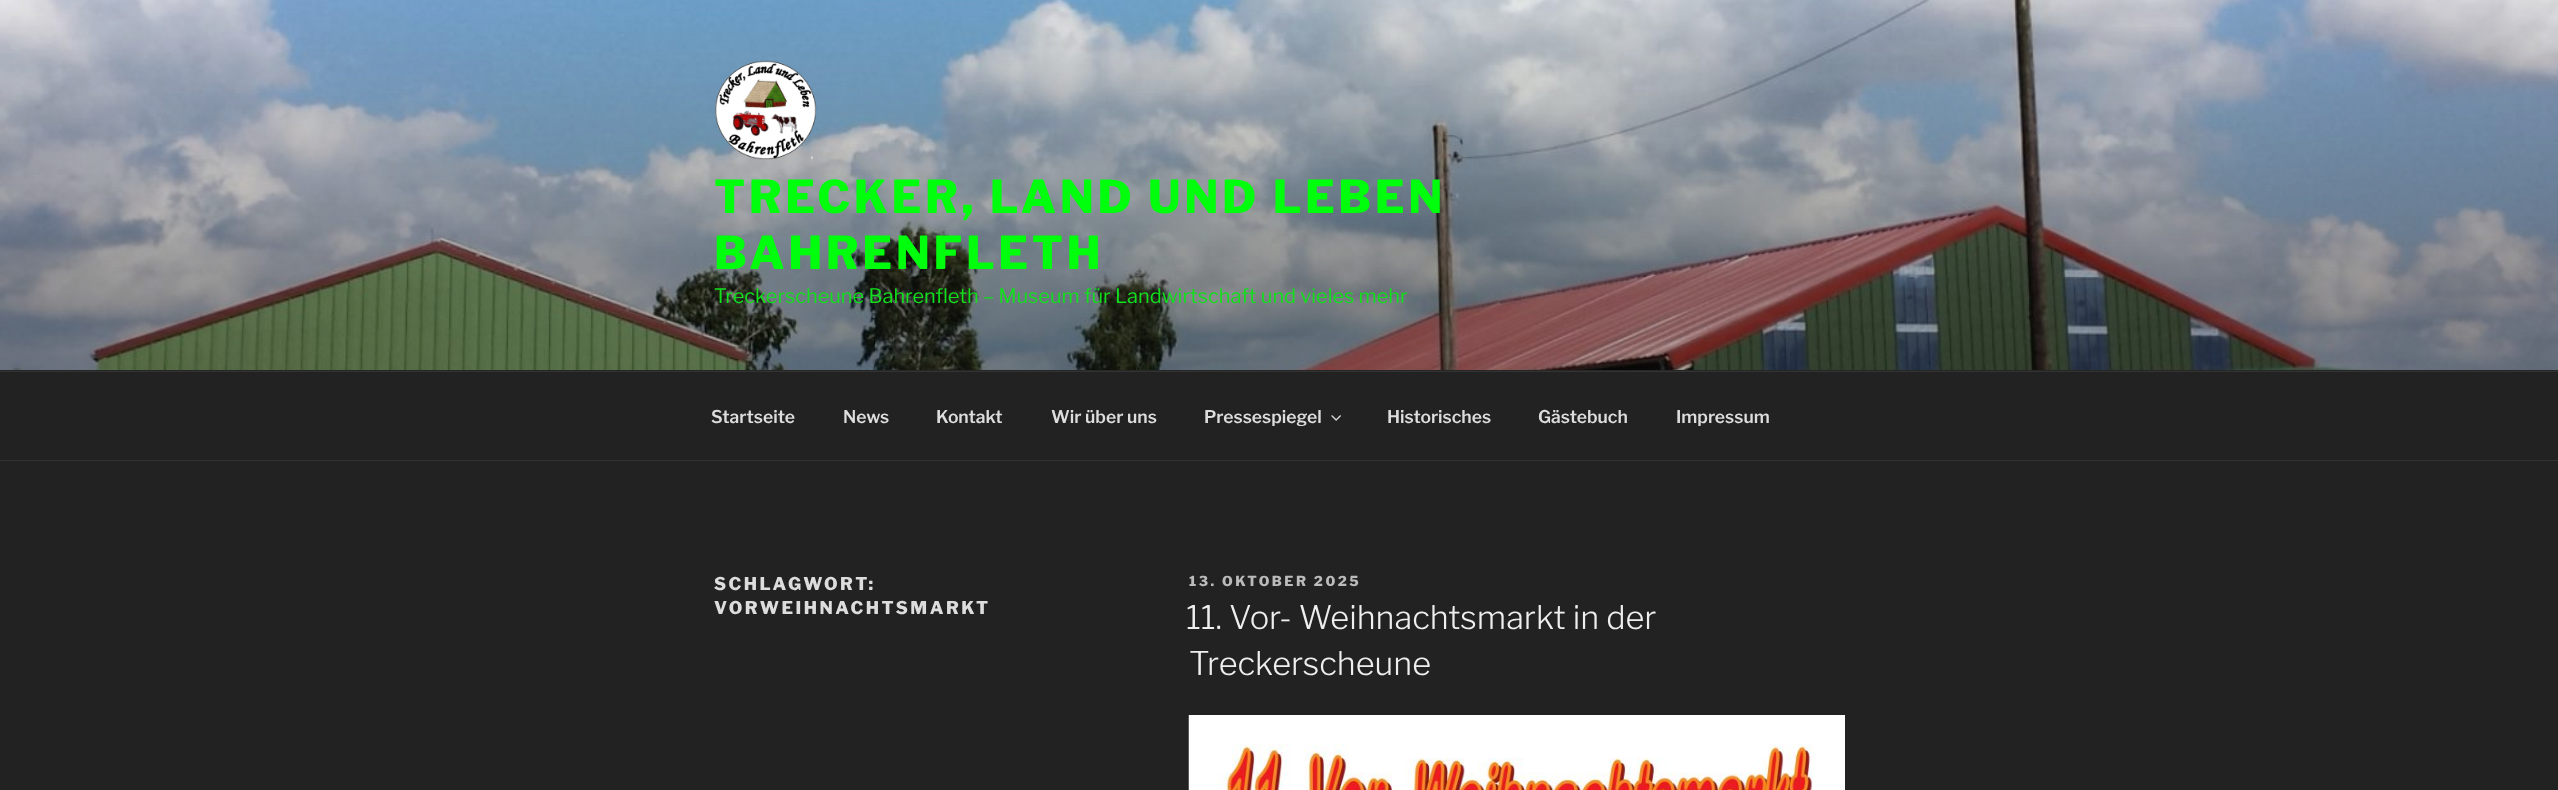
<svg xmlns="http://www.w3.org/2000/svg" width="2558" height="790">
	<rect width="100%" height="100%" fill="#222222" />
	<rect x="0" y="370" width="2558" height="1" fill="#262626" />
	<image x="0" y="0" width="2558" height="370" href="assets/img1.png" />
	<image x="715" y="60" width="102" height="100" href="assets/img2.png" />
	<g font-family="Libre Franklin" font-size="45" font-weight="100" letter-spacing="3.6" fill="#00FF0C">
		<text x="714" y="213">TRECKER, LAND UND LEBEN</text>
		<text x="714" y="269">BAHRENFLETH</text>
	</g>
	<text x="714" y="303" font-family="'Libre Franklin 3'" font-size="20" font-weight="100" fill="#12DF1D">Treckerscheune Bahrenfleth – Museum für Landwirtschaft und vieles mehr</text>
	<rect x="0" y="371" width="2558" height="1" fill="#333333" />
	<rect x="0" y="460" width="2558" height="1" fill="#333333" />
	<g font-family="'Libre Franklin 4'" font-size="17.5" font-weight="100" fill="#DDDDDD">
		<text x="711" y="423">Startseite</text>
		<text x="843" y="423">News</text>
		<text x="936" y="423">Kontakt</text>
		<text x="1051" y="423">Wir über uns</text>
		<text x="1204" y="423">Pressespiegel</text>
	</g>
	<image x="1331" y="415" width="10" height="6" href="assets/img3.png" />
	<g font-family="'Libre Franklin 4'" font-size="17.5" font-weight="100" fill="#DDDDDD">
		<text x="1387" y="423">Historisches</text>
		<text x="1538" y="423">Gästebuch</text>
		<text x="1676" y="423">Impressum</text>
	</g>
	<g font-family="Libre Franklin" font-size="17.5" font-weight="100" letter-spacing="2.5" fill="#DDDDDD">
		<text x="714" y="590">SCHLAGWORT:</text>
		<text x="714" y="614">VORWEIHNACHTSMARKT</text>
	</g>
	<text x="1189" y="586" font-family="Libre Franklin" font-size="13.75" font-weight="100" letter-spacing="2.5" fill="#BBBBBB">13. OKTOBER 2025</text>
	<g font-family="'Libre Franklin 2'" font-size="32.5" font-weight="100" fill="#EEEEEE">
		<text x="1186" y="629">11. Vor- Weihnachtsmarkt in der</text>
		<text x="1189" y="675">Treckerscheune</text>
	</g>
	<image x="1188" y="715" width="657" height="75" href="assets/img4.png" />
</svg>
